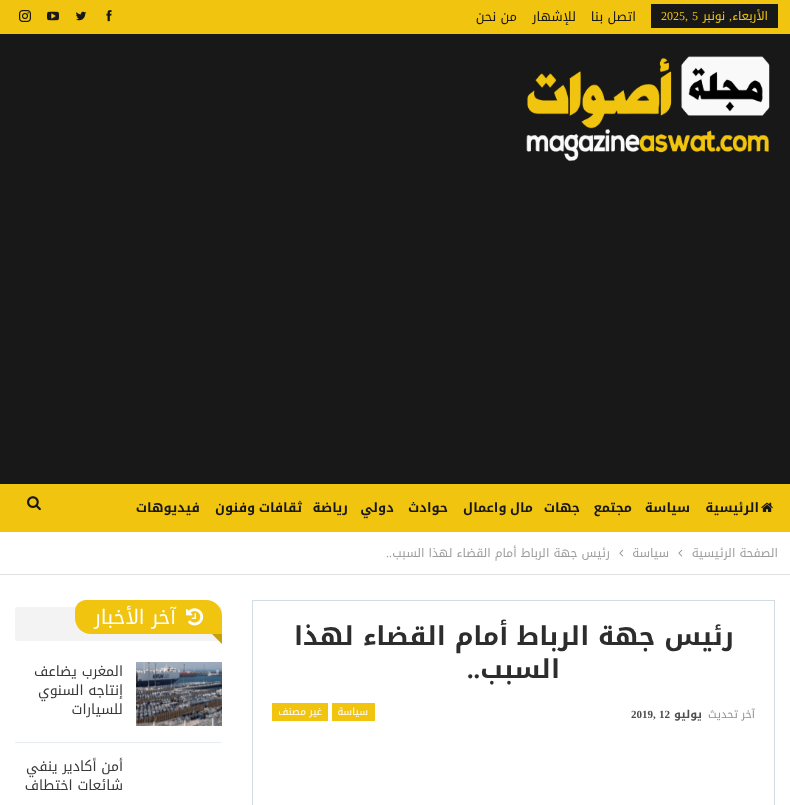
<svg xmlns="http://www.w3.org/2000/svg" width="790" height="805">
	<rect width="100%" height="100%" fill="#FFFFFF" />
	<rect x="0" y="34" width="790" height="450" fill="#181818" />
	<rect x="0" y="0" width="790" height="34" fill="#F1C40F" />
	<rect x="651" y="4" width="127" height="24" fill="#181818" />
	<text x="768" y="20" font-family="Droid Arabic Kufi" font-size="12" direction="rtl" fill="#F1C40F">الأربعاء</text>
	<text x="732" y="20" font-family="Liberation Serif" font-size="12" direction="rtl" fill="#F1C40F">,</text>
	<text x="725" y="20" font-family="Droid Arabic Kufi" font-size="12" direction="rtl" fill="#F1C40F">نونبر</text>
	<g font-family="Liberation Serif" font-size="12" fill="#F1C40F">
		<text x="692" y="20">5</text>
		<text x="661" y="20">2025,</text>
	</g>
	<g font-family="Droid Arabic Kufi" font-size="13" direction="rtl" fill="#181818">
		<text x="636" y="21">اتصل بنا</text>
		<text x="576" y="21">للإشهار</text>
		<text x="517" y="21">من نحن</text>
	</g>
	<image x="106" y="10" width="6" height="12" href="assets/img1.png" />
	<image x="76" y="11" width="11" height="10" href="assets/img2.png" />
	<image x="47" y="11" width="12" height="10" href="assets/img3.png" />
	<image x="19" y="10" width="12" height="12" href="assets/img4.png" />
	<image x="526" y="56" width="244" height="105" href="assets/img5.png" />
	<rect x="0" y="484" width="790" height="48" fill="#F1C40F" />
	<image x="761" y="502" width="12" height="10" href="assets/img6.png" />
	<g font-family="Droid Arabic Kufi" font-size="13" font-weight="700" letter-spacing="0.5" direction="rtl" fill="#181818">
		<text x="759" y="512">الرئيسية</text>
		<text x="690" y="512">سياسة</text>
		<text x="632" y="512">مجتمع</text>
		<text x="580" y="512">جهات</text>
		<text x="533" y="512" word-spacing="-1">مال واعمال</text>
		<text x="448" y="512">حوادث</text>
		<text x="394" y="512">دولي</text>
		<text x="348" y="512">رياضة</text>
		<text x="302" y="512" word-spacing="-1">ثقافات وفنون</text>
		<text x="200" y="512">فيديوهات</text>
	</g>
	<image x="27" y="496" width="14" height="15" href="assets/img7.png" />
	<rect x="0" y="574" width="790" height="1" fill="#E2E2E2" />
	<text x="778" y="557" font-family="Droid Arabic Kufi" font-size="12" direction="rtl" fill="#9E9E9E">الصفحة الرئيسية</text>
	<image x="678" y="549" width="5" height="8" href="assets/img8.png" />
	<text x="669" y="557" font-family="Droid Arabic Kufi" font-size="12" direction="rtl" fill="#9E9E9E">سياسة</text>
	<image x="619" y="549" width="5" height="8" href="assets/img8.png" />
	<text x="610" y="557" font-family="Droid Arabic Kufi" font-size="12" direction="rtl" fill="#9E9E9E">رئيس جهة الرباط أمام القضاء لهذا السبب</text>
	<text x="392" y="557" font-family="Liberation Serif" font-size="12" direction="rtl" fill="#9E9E9E">..</text>
	<rect x="252.5" y="600.5" width="522" height="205" fill="none" stroke="#D2DCE3" />
	<g font-family="Droid Arabic Kufi" font-size="26" font-weight="700" direction="rtl" fill="#2D2D2D">
		<text x="734" y="645">رئيس جهة الرباط أمام القضاء لهذا</text>
		<text x="560" y="678">السبب</text>
	</g>
	<text x="480" y="678" font-family="Liberation Serif" font-size="26" font-weight="700" direction="rtl" fill="#2D2D2D">..</text>
	<text x="755" y="718" font-family="Droid Arabic Kufi" font-size="11" direction="rtl" fill="#8F8F8F">آخر تحديث</text>
	<text x="702" y="718" font-family="Droid Arabic Kufi" font-size="11" font-weight="700" direction="rtl" fill="#4D4D4D">يوليو</text>
	<g font-family="Liberation Serif" font-size="11" font-weight="700" fill="#4D4D4D">
		<text x="659" y="718">12</text>
		<text x="631" y="718">2019,</text>
	</g>
	<rect x="332" y="703" width="43" height="18" fill="#F1C40F" />
	<text x="368" y="715" font-family="Droid Arabic Kufi" font-size="10" direction="rtl" fill="#FFFFFF">سياسة</text>
	<rect x="272" y="703" width="56" height="18" fill="#F1C40F" />
	<text x="322" y="715" font-family="Droid Arabic Kufi" font-size="10" direction="rtl" fill="#FFFFFF">غير مصنف</text>
	<rect x="15" y="607" width="207" height="34" rx="3" fill="#F3F3F3" />
	<path d="M86 600H206C215 600 222 607 222 616V634H91C82 634 75 627 75 618V611C75 605 80 600 86 600Z" fill="#F1C40F" />
	<image x="186" y="608" width="18" height="18" href="assets/img9.png" />
	<text x="176" y="624" font-family="Droid Arabic Kufi" font-size="20" direction="rtl" fill="#FFFFFF">آخر الأخبار</text>
	<path d="M212 634H222V644Z" fill="#F1C40F" />
	<path d="M212 634H222V644Z" fill="#000000" fill-opacity="0.18" />
	<rect x="15" y="742" width="207" height="1" fill="#E8EDF1" />
	<image x="136" y="662" width="86" height="64" href="assets/img10.png" />
	<g font-family="Droid Arabic Kufi" font-size="14" direction="rtl" fill="#383838">
		<text x="123" y="676">المغرب يضاعف</text>
		<text x="123" y="695">إنتاجه السنوي</text>
		<text x="123" y="714">للسيارات</text>
		<text x="123" y="771">أمن أكادير ينفي</text>
		<text x="123" y="790">شائعات اختطاف</text>
	</g>
</svg>
